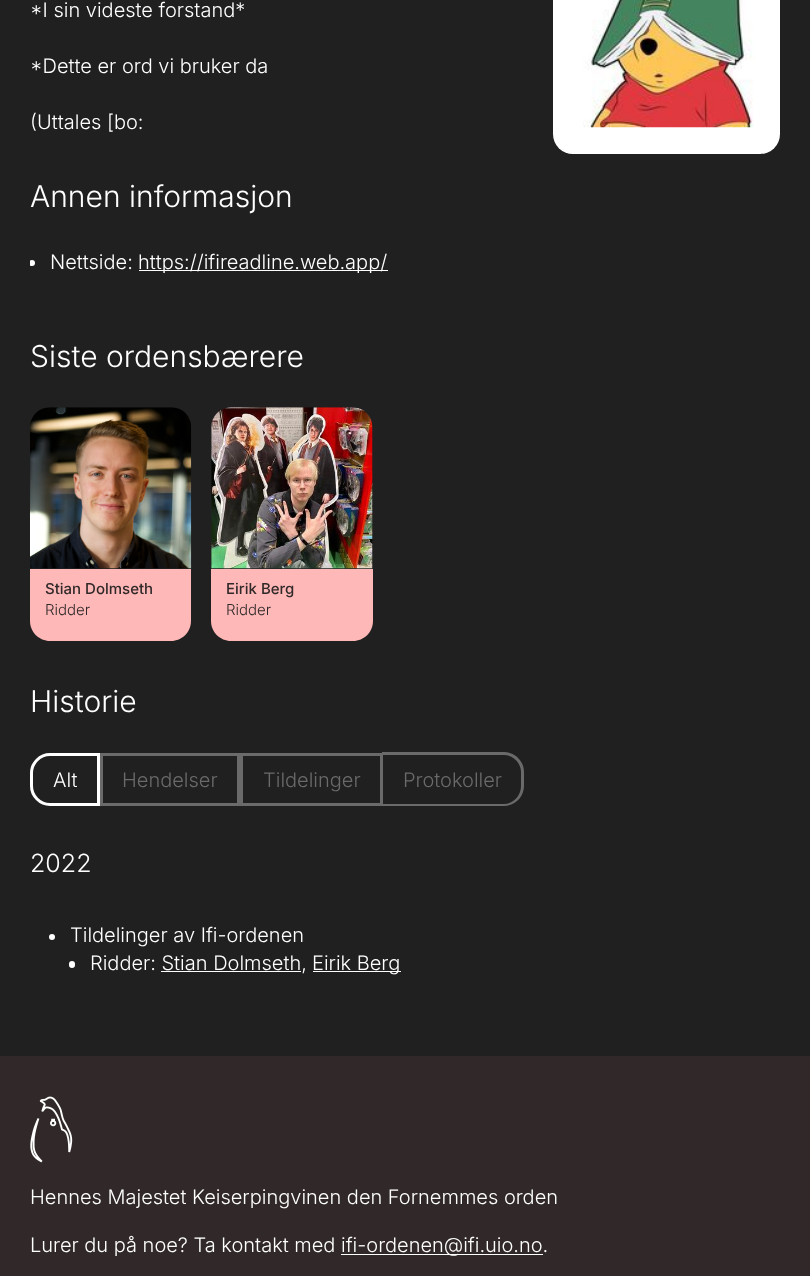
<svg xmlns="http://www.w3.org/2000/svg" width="810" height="1276">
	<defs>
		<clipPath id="clip1"><rect x="30" y="0" width="750" height="296" /></clipPath>
	</defs>
	<rect width="100%" height="100%" fill="#212020" />
	<g font-family="Inter" font-size="20" font-weight="300" fill="#FFFFFF">
		<text x="30" y="17">*I sin videste forstand*</text>
		<text x="30" y="73">*Dette er ord vi bruker da</text>
		<text x="30" y="129">(Uttales [bo:</text>
	</g>
	<rect x="553" y="-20" width="227" height="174" rx="20" fill="#FFFFFF" />
	<image x="583" y="0" width="171" height="128" href="assets/img1.png" />
	<text x="30" y="207" font-family="Inter" font-size="30" font-weight="300" fill="#FFFFFF">Annen informasjon</text>
	<g clip-path="url(#clip1)">
		<circle cx="32" cy="263" r="3" fill="#FFFFFF" />
	</g>
	<text x="50" y="269" font-family="Inter" font-size="20" font-weight="300" fill="#FFFFFF">Nettside:</text>
	<rect x="139" y="270" width="249" height="1" fill="#FFFFFF" />
	<text x="138" y="269" font-family="Inter" font-size="20" font-weight="300" fill="#FFFFFF">https://ifireadline.web.app/</text>
	<text x="30" y="367" font-family="Inter" font-size="30" font-weight="300" fill="#FFFFFF">Siste ordensbærere</text>
	<image x="30" y="407" width="162" height="162" href="assets/img2.png" />
	<path d="M30 569H191V621C191 632 182 641 171 641H50C39 641 30 632 30 621Z" fill="#FFB8B8" />
	<text x="45" y="594" font-family="Inter" font-size="15" font-weight="500" fill="#312929">Stian Dolmseth</text>
	<text x="45" y="615" font-family="Inter" font-size="15" font-weight="300" fill="#312929">Ridder</text>
	<image x="211" y="407" width="162" height="162" href="assets/img3.png" />
	<path d="M211 569H373V621C373 632 364 641 353 641H231C220 641 211 632 211 621Z" fill="#FFB8B8" />
	<text x="226" y="594" font-family="Inter" font-size="15" font-weight="500" fill="#312929">Eirik Berg</text>
	<text x="226" y="615" font-family="Inter" font-size="15" font-weight="300" fill="#312929">Ridder</text>
	<text x="30" y="712" font-family="Inter" font-size="30" font-weight="300" fill="#FFFFFF">Historie</text>
	<path d="M50 754.5H98.5V804.5H50C40 804.5 31.5 796 31.5 786V773C31.5 763 40 754.5 50 754.5Z" fill="none" stroke="#FFFFFF" stroke-width="3" />
	<text x="53" y="787" font-family="Inter" font-size="20" font-weight="300" fill="#FFFFFF">Alt</text>
	<rect x="101.5" y="754.5" width="137" height="50" fill="none" stroke="#6A6A6A" stroke-width="3" />
	<text x="122" y="787" font-family="Inter" font-size="20" font-weight="300" fill="#6A6A6A">Hendelser</text>
	<rect x="241.5" y="754.5" width="140" height="50" fill="none" stroke="#6A6A6A" stroke-width="3" />
	<text x="263" y="787" font-family="Inter" font-size="20" font-weight="300" fill="#6A6A6A">Tildelinger</text>
	<path d="M382 752H504C515 752 524 761 524 772V786C524 797 515 806 504 806H382ZM382 755H504C513 755 521 763 521 772V786C521 796 513 804 504 804H382Z" fill="#6A6A6A" fill-rule="evenodd" />
	<text x="403" y="787" font-family="Inter" font-size="20" font-weight="300" fill="#6A6A6A">Protokoller</text>
	<text x="30" y="872" font-family="Inter" font-size="25" font-weight="300" fill="#FFFFFF">2022</text>
	<circle cx="52" cy="937" r="3" fill="#FFFFFF" />
	<text x="70" y="942" font-family="Inter" font-size="20" font-weight="300" fill="#FFFFFF">Tildelinger av Ifi-ordenen</text>
	<rect x="69" y="961" width="6" height="7" rx="3" fill="#FFFFFF" />
	<text x="90" y="970" font-family="Inter" font-size="20" font-weight="300" fill="#FFFFFF">Ridder: Stian Dolmseth,</text>
	<rect x="313" y="971" width="88" height="1" fill="#FFFFFF" />
	<text x="312" y="970" font-family="Inter" font-size="20" font-weight="300" fill="#FFFFFF">Eirik Berg</text>
	<rect x="161" y="971" width="140" height="1" fill="#FFFFFF" />
	<rect x="0" y="1056" width="810" height="220" fill="#312929" />
	<image x="30" y="1096" width="43" height="67" href="assets/img4.png" />
	<g font-family="Inter" font-size="20" font-weight="300" fill="#FFFFFF">
		<text x="30" y="1204">Hennes Majestet Keiserpingvinen den Fornemmes orden</text>
		<text x="30" y="1252">Lurer du på noe? Ta kontakt med</text>
	</g>
	<rect x="341" y="1254" width="202" height="1" fill="#FFFFFF" />
	<text x="341" y="1252" font-family="Inter" font-size="20" font-weight="300" fill="#FFFFFF">ifi-ordenen@ifi.uio.no.</text>
</svg>
